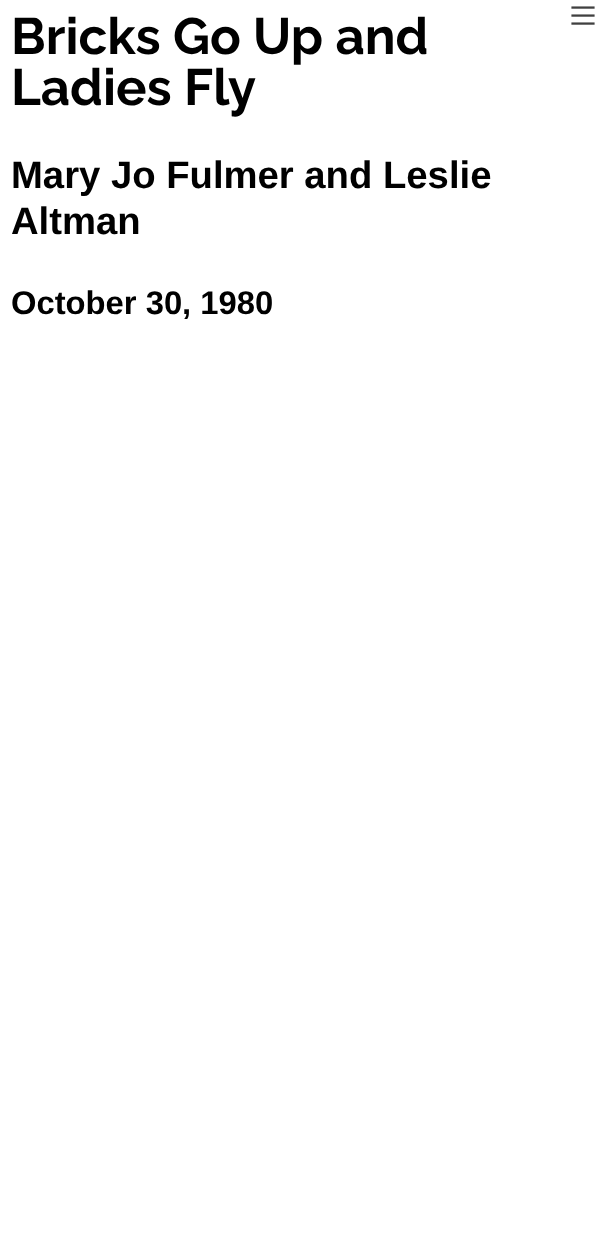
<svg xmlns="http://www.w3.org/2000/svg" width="599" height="1256">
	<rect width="100%" height="100%" fill="#FFFFFF" />
	<g font-family="Raleway" font-size="51" font-weight="100" fill="#000000">
		<text x="11" y="54">Bricks Go Up and</text>
		<text x="11" y="105">Ladies Fly</text>
	</g>
	<g font-family="Liberation Sans" font-size="38.25" font-weight="700" fill="#000000">
		<text x="11" y="188">Mary Jo Fulmer and Leslie</text>
		<text x="11" y="234">Altman</text>
	</g>
	<text x="11" y="314" font-family="Liberation Sans" font-size="32.75" font-weight="700" fill="#000000">October 30, 1980</text>
	<image x="571" y="6" width="24" height="19" href="assets/img1.png" />
</svg>
